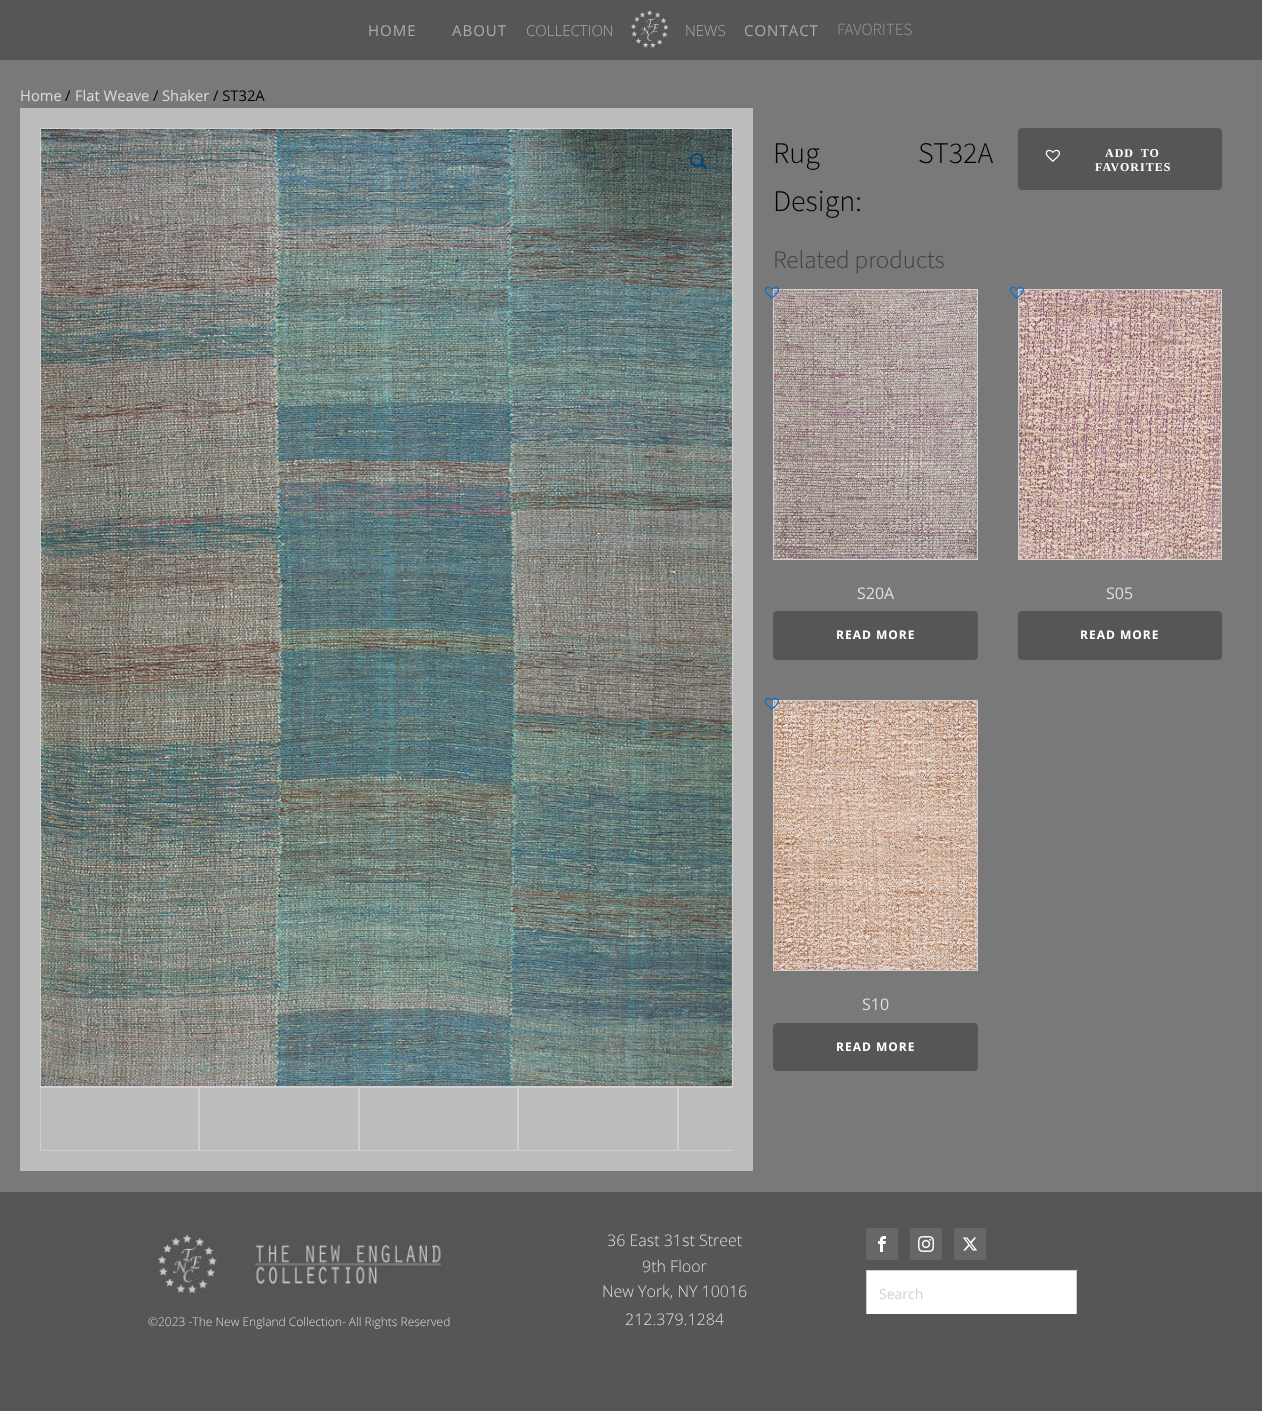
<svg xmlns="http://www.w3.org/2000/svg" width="1262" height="1411">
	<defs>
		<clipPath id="clip1"><rect x="40" y="1087" width="693" height="64" /></clipPath>
		<clipPath id="clip2"><rect x="866" y="1270" width="211" height="44" /></clipPath>
	</defs>
	<rect width="100%" height="100%" fill="#565656" />
	<g font-family="Open Sans" font-size="15" letter-spacing="1" fill="#ABABAB">
		<text x="368" y="36">HOME</text>
		<text x="452" y="36">ABOUT</text>
	</g>
	<text x="526" y="36" font-family="Open Sans" font-size="15" font-weight="300" fill="#ABABAB">COLLECTION</text>
	<image x="631" y="10" width="37" height="38" href="assets/img1.png" />
	<text x="685" y="36" font-family="Open Sans" font-size="15" font-weight="300" fill="#ABABAB">NEWS</text>
	<text x="744" y="36" font-family="Open Sans" font-size="15" letter-spacing="1" fill="#ABABAB">CONTACT</text>
	<text x="837" y="35" font-family="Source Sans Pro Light" font-size="17" font-weight="300" fill="#999999">FAVORITES</text>
	<rect x="0" y="60" width="1262" height="1132" fill="#7A7979" />
	<text x="20" y="101" font-family="Open Sans" font-size="14.75" fill="#DDDDDD">Home</text>
	<text x="65" y="101" font-family="Open Sans" font-size="14.75" fill="#000000">/</text>
	<text x="75" y="101" font-family="Open Sans" font-size="14.75" fill="#DDDDDD">Flat Weave</text>
	<text x="153" y="101" font-family="Open Sans" font-size="14.75" fill="#000000">/</text>
	<text x="162" y="101" font-family="Open Sans" font-size="14.75" fill="#DDDDDD">Shaker</text>
	<text x="213" y="101" font-family="Open Sans" font-size="14.75" fill="#000000">/ ST32A</text>
	<rect x="20" y="108" width="733" height="1063" fill="#BCBCBC" />
	<rect x="40.5" y="128.5" width="692" height="958" fill="none" stroke="#D3CED2" />
	<image x="41" y="129" width="691" height="957" href="assets/img2.png" />
	<circle cx="697" cy="160" r="6" fill="none" stroke="#004482" stroke-width="2" />
	<path d="M701.5 163.5C702.5 162.5 704.5 165 705 166C705.5 166.5 708 168 707 169.5C706 170.5 704 168 703.5 167.5C703 166.5 700 165 701.5 163.5Z" fill="#004482" />
	<rect x="40.5" y="1087.5" width="158" height="63" fill="none" stroke="#D3CED2" />
	<rect x="199.5" y="1087.5" width="159" height="63" fill="none" stroke="#D3CED2" />
	<rect x="359.5" y="1087.5" width="158" height="63" fill="none" stroke="#D3CED2" />
	<rect x="518.5" y="1087.5" width="159" height="63" fill="none" stroke="#D3CED2" />
	<g clip-path="url(#clip1)">
		<rect x="678.5" y="1087.5" width="158" height="63" fill="none" stroke="#D3CED2" />
	</g>
	<g font-family="Source Sans Pro Light" font-size="30" font-weight="300" fill="#000000">
		<text x="773" y="163">Rug</text>
		<text x="773" y="211">Design:</text>
		<text x="918" y="163">ST32A</text>
	</g>
	<rect x="1018.5" y="128.5" width="203" height="61" rx="3.5" fill="#565656" stroke="#565656" />
	<image x="1045" y="149" width="15" height="13" href="assets/img3.png" />
	<g font-family="Liberation Serif" font-size="12" font-weight="700" letter-spacing="1" fill="#FFFFFF">
		<text x="1105" y="157" word-spacing="3">ADD TO</text>
		<text x="1095" y="171">FAVORITES</text>
	</g>
	<text x="773" y="268" font-family="Source Sans Pro Light" font-size="25" font-weight="300" fill="#404040">Related products</text>
	<rect x="773.5" y="289.5" width="204" height="270" fill="none" stroke="#D3CED2" />
	<image x="774" y="290" width="203" height="269" href="assets/img5.png" />
	<image x="764" y="286" width="15" height="13" href="assets/img4.png" />
	<text x="857" y="599" font-family="Open Sans" font-size="16" fill="#DDDDDD">S20A</text>
	<rect x="773.5" y="611.5" width="204" height="48" rx="3.5" fill="#565656" stroke="#565656" />
	<text x="836" y="639" font-family="Open Sans" font-size="12" font-weight="700" letter-spacing="1" fill="#FFFFFF">READ MORE</text>
	<rect x="1018.5" y="289.5" width="203" height="270" fill="none" stroke="#D3CED2" />
	<image x="1019" y="290" width="202" height="269" href="assets/img7.png" />
	<image x="1009" y="286" width="15" height="13" href="assets/img6.png" />
	<text x="1106" y="599" font-family="Open Sans" font-size="16" fill="#DDDDDD">S05</text>
	<rect x="1018.5" y="611.5" width="203" height="48" rx="3.5" fill="#565656" stroke="#565656" />
	<text x="1080" y="639" font-family="Open Sans" font-size="12" font-weight="700" letter-spacing="1" fill="#FFFFFF">READ MORE</text>
	<rect x="773.5" y="700.5" width="204" height="270" fill="none" stroke="#D3CED2" />
	<image x="774" y="701" width="203" height="269" href="assets/img9.png" />
	<image x="764" y="697" width="15" height="13" href="assets/img8.png" />
	<text x="862" y="1010" font-family="Open Sans" font-size="16" fill="#DDDDDD">S10</text>
	<rect x="773.5" y="1023.5" width="204" height="47" rx="3.5" fill="#565656" stroke="#565656" />
	<text x="836" y="1051" font-family="Open Sans" font-size="12" font-weight="700" letter-spacing="1" fill="#FFFFFF">READ MORE</text>
	<g font-family="Open Sans" font-size="16" font-weight="300" fill="#DDDDDD">
		<text x="607" y="1246">36 East 31st Street</text>
		<text x="642" y="1272">9th Floor</text>
		<text x="602" y="1297">New York, NY 10016</text>
		<text x="625" y="1325">212.379.1284</text>
	</g>
	<rect x="866" y="1228" width="32" height="32" fill="#676767" />
	<image x="878" y="1236" width="8" height="16" href="assets/img10.png" />
	<rect x="910" y="1228" width="32" height="32" fill="#676767" />
	<image x="918" y="1236" width="16" height="16" href="assets/img11.png" />
	<rect x="954" y="1228" width="32" height="32" fill="#676767" />
	<image x="963" y="1237" width="15" height="14" href="assets/img12.png" />
	<rect x="867" y="1271" width="209" height="43" fill="#FFFFFF" />
	<g clip-path="url(#clip2)">
		<rect x="866.5" y="1270.5" width="210" height="47" fill="none" stroke="#D3CED2" />
	</g>
	<text x="879" y="1299" font-family="Open Sans" font-size="14" fill="#D3CED2">Search</text>
	<image x="151" y="1228" width="292" height="67" href="assets/img13.png" />
	<text x="148" y="1326" font-family="Open Sans" font-size="12" font-weight="300" fill="#DDDDDD">©2023 -The New England Collection- All Rights Reserved</text>
</svg>
